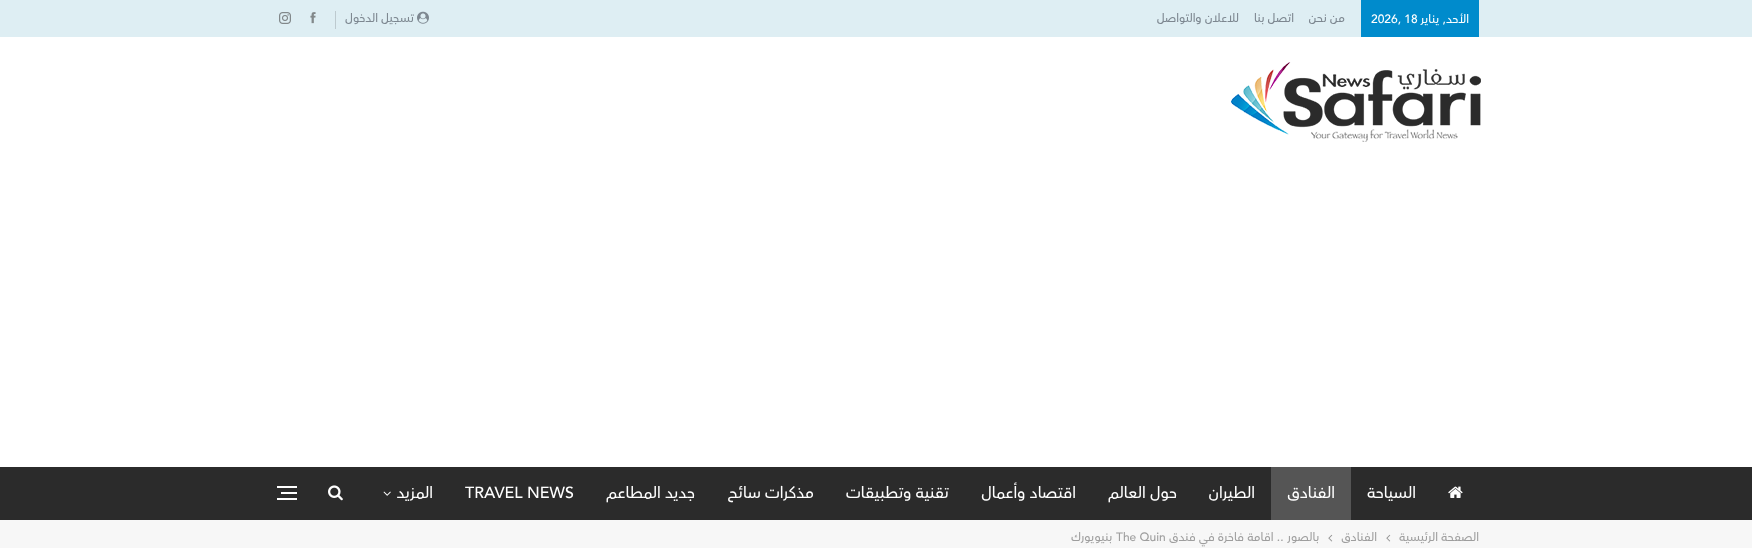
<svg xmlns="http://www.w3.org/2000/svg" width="1752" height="548">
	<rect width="100%" height="100%" fill="#F7F7F7" />
	<rect x="0" y="37" width="1752" height="430" fill="#FFFFFF" />
	<rect x="0" y="0" width="1752" height="37" fill="#DEEEF3" />
	<rect x="1361" y="0" width="118" height="37" fill="#008BCC" />
	<text x="1469" y="23" font-family="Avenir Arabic" font-size="12" font-weight="500" direction="rtl" fill="#FFFFFF">الأحد, يناير</text>
	<text x="1371" y="23" font-family="Avenir Arabic" font-size="12" font-weight="500" fill="#FFFFFF">2026, 18</text>
	<g font-family="Avenir Arabic" font-size="12" font-weight="500" direction="rtl" fill="#7D8790">
		<text x="1345" y="22">من نحن</text>
		<text x="1294" y="22">اتصل بنا</text>
		<text x="1239" y="22">للاعلان والتواصل</text>
	</g>
	<image x="417" y="11" width="12" height="13" href="assets/img1.png" />
	<text x="414" y="22" font-family="Avenir Arabic" font-size="12" font-weight="500" direction="rtl" fill="#7D8790">تسجيل الدخول</text>
	<rect x="335" y="11" width="1" height="18" fill="#BDCACF" />
	<image x="310" y="12" width="6" height="12" href="assets/img2.png" />
	<image x="279" y="12" width="12" height="12" href="assets/img3.png" />
	<image x="1231" y="62" width="250" height="80" href="assets/img4.png" />
	<rect x="0" y="467" width="1752" height="53" fill="#2B2B2B" />
	<image x="1448" y="486" width="15" height="12" href="assets/img5.png" />
	<text x="1416" y="498" font-family="Avenir Arabic" font-size="16" font-weight="500" direction="rtl" fill="#FFFFFF">السياحة</text>
	<rect x="1271" y="467" width="80" height="53" fill="#555555" />
	<g font-family="Avenir Arabic" font-size="16" font-weight="500" direction="rtl" fill="#FFFFFF">
		<text x="1335" y="498">الفنادق</text>
		<text x="1255" y="498">الطيران</text>
		<text x="1177" y="498">حول العالم</text>
		<text x="1076" y="498">اقتصاد وأعمال</text>
		<text x="949" y="498">تقنية وتطبيقات</text>
		<text x="814" y="498">مذكرات سائح</text>
		<text x="695" y="498">جديد المطاعم</text>
	</g>
	<text x="465" y="498" font-family="Avenir Arabic" font-size="16" font-weight="500" fill="#FFFFFF">TRAVEL NEWS</text>
	<text x="433" y="498" font-family="Avenir Arabic" font-size="16" font-weight="500" direction="rtl" fill="#FFFFFF">المزيد</text>
	<image x="383" y="491" width="8" height="5" href="assets/img6.png" />
	<image x="328" y="485" width="15" height="16" href="assets/img7.png" />
	<rect x="281" y="492" width="16" height="2" fill="#FFFFFF" />
	<rect x="277" y="486" width="20" height="2" fill="#FFFFFF" />
	<rect x="277" y="498" width="20" height="2" fill="#FFFFFF" />
	<text x="1479" y="541" font-family="Avenir Arabic" font-size="12" font-weight="500" direction="rtl" fill="#9E9E9E">الصفحة الرئيسية</text>
	<image x="1386" y="534" width="5" height="8" href="assets/img8.png" />
	<text x="1377" y="541" font-family="Avenir Arabic" font-size="12" font-weight="500" direction="rtl" fill="#9E9E9E">الفنادق</text>
	<image x="1328" y="534" width="5" height="8" href="assets/img8.png" />
	<text x="1319" y="541" font-family="Avenir Arabic" font-size="12" font-weight="500" direction="rtl" fill="#9E9E9E">بالصور .. اقامة فاخرة في فندق</text>
	<text x="1116" y="541" font-family="Avenir Arabic" font-size="12" font-weight="500" fill="#9E9E9E">The Quin</text>
	<text x="1112" y="541" font-family="Avenir Arabic" font-size="12" font-weight="500" direction="rtl" fill="#9E9E9E">بنيويورك</text>
</svg>
